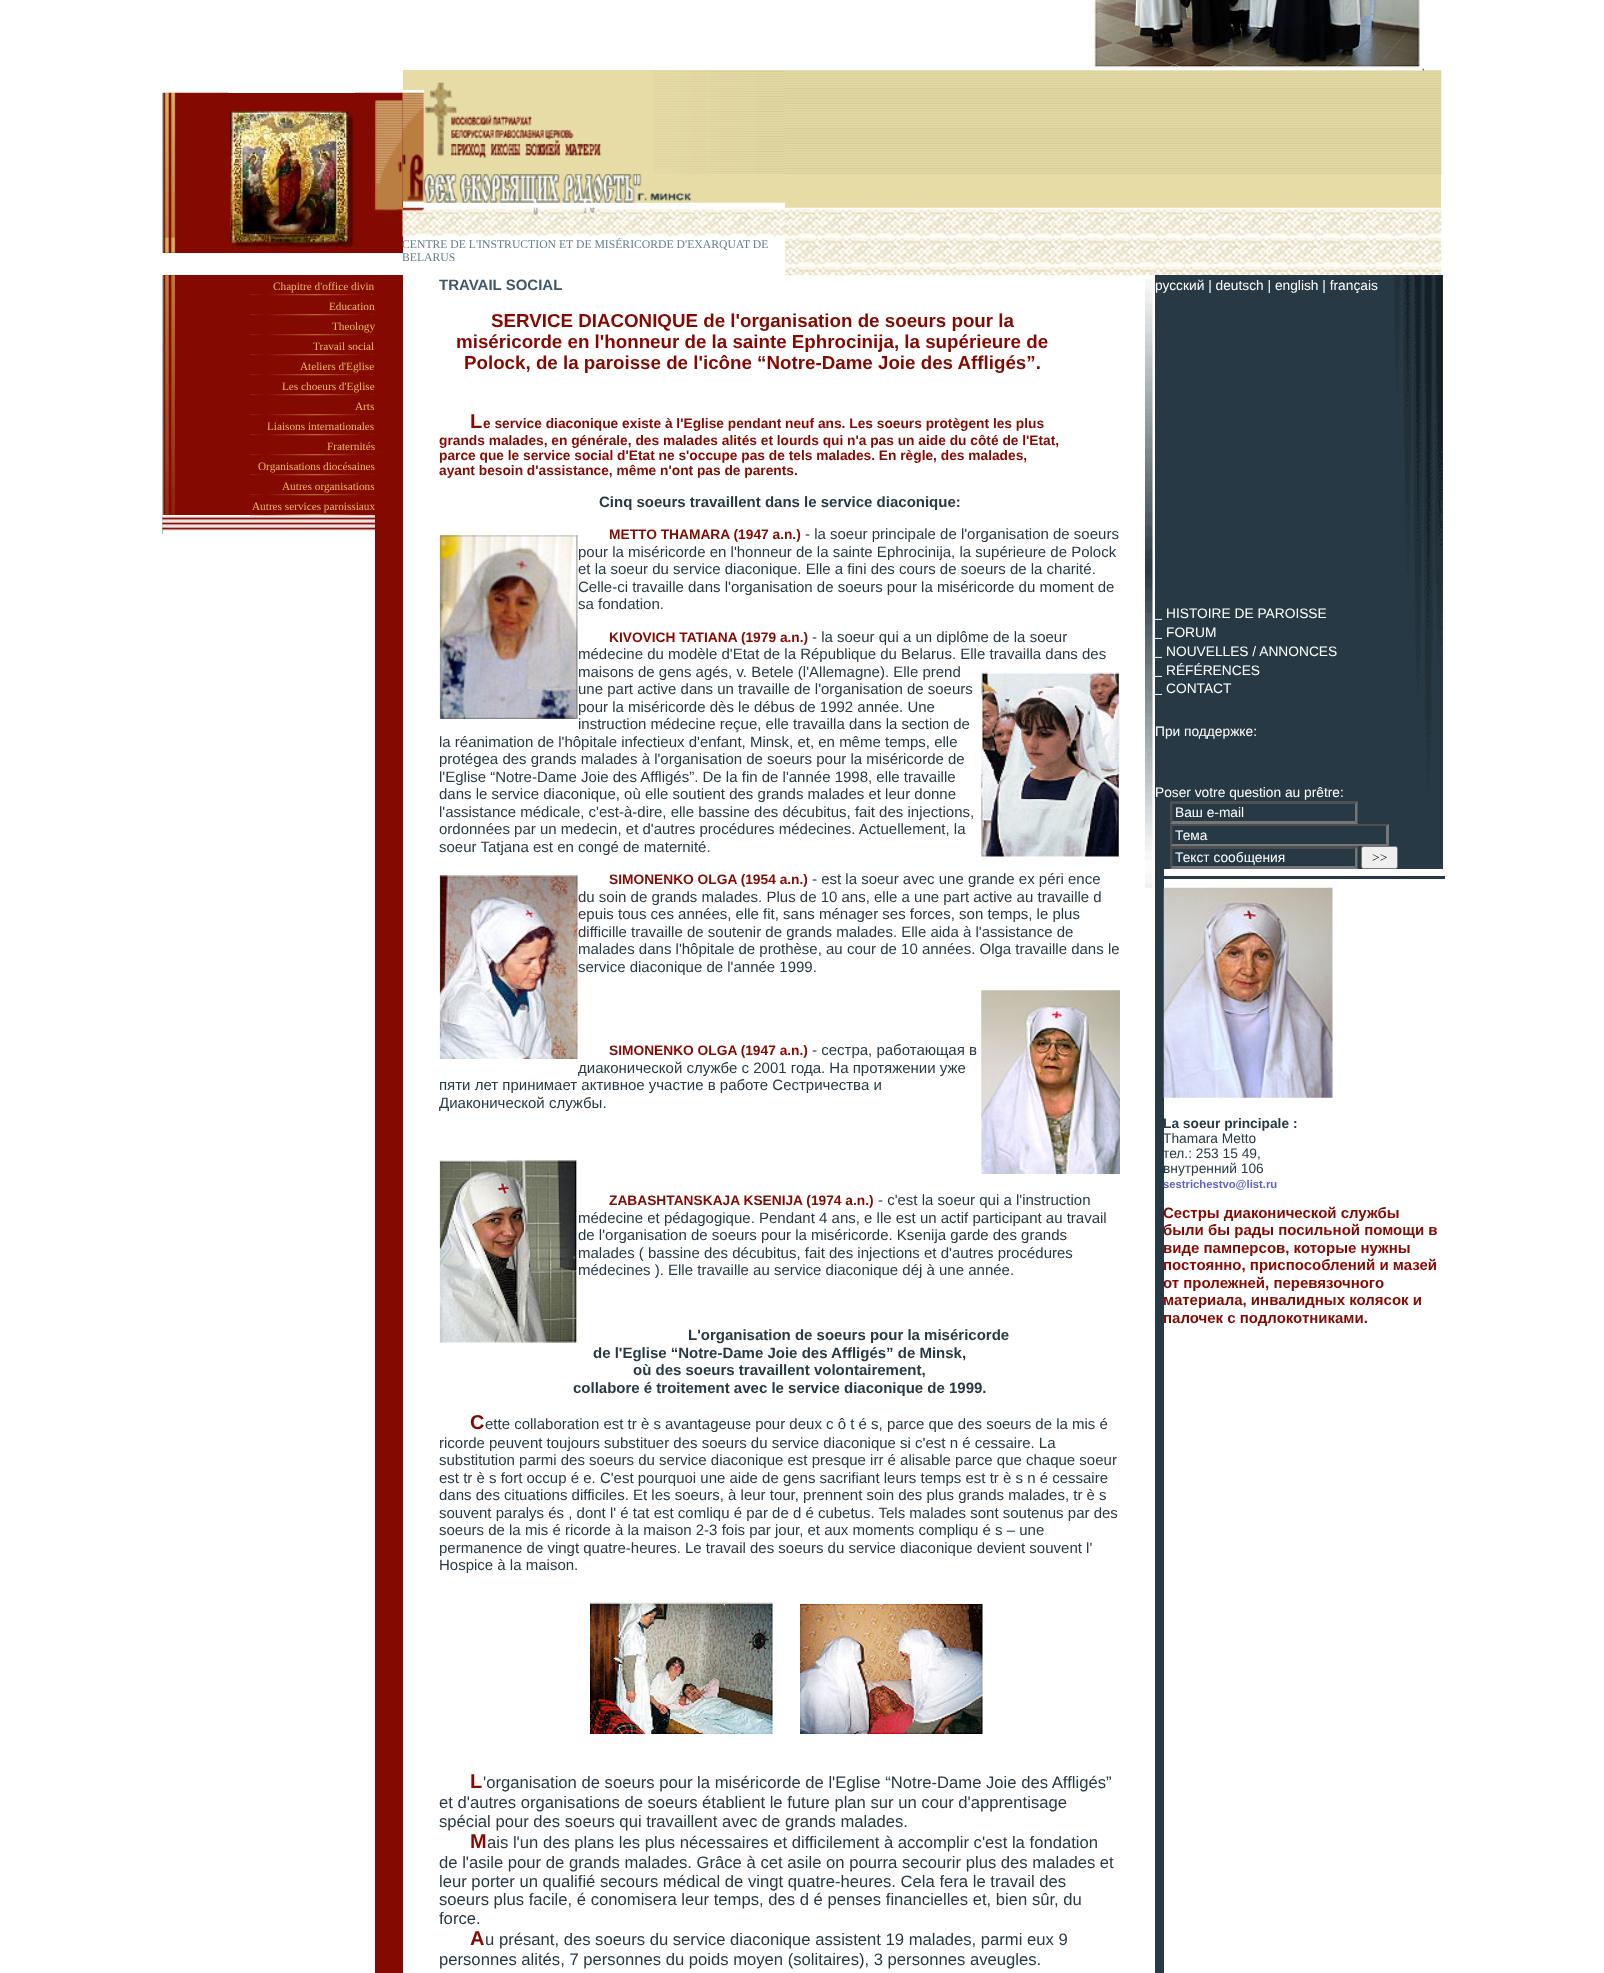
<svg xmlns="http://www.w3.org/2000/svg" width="1604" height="1973">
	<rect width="100%" height="100%" fill="#FFFFFF" />
	<image x="785" y="70" width="657" height="104" href="assets/img7.png" />
	<image x="1091" y="0" width="333" height="71" href="assets/img1.png" />
	<rect x="163" y="93" width="67" height="160" fill="#830901" />
	<image x="162" y="92" width="67" height="161" href="assets/img2.png" />
	<rect x="230" y="93" width="124" height="160" fill="#830901" />
	<rect x="354" y="93" width="49" height="160" fill="#830901" />
	<image x="355" y="92" width="48" height="119" href="assets/img3.png" />
	<image x="230" y="111" width="124" height="138" href="assets/img4.png" />
	<rect x="403" y="70" width="21" height="20" fill="#E7DCA6" />
	<rect x="424" y="70" width="361" height="104" fill="#E7DCA6" />
	<image x="653" y="71" width="132" height="103" href="assets/img5.png" />
	<image x="425" y="82" width="177" height="76" href="assets/img6.png" />
	<image x="402" y="92" width="22" height="110" href="assets/img8.png" />
	<image x="423" y="174" width="215" height="29" href="assets/img9.png" />
	<image x="637" y="174" width="148" height="29" href="assets/img10.png" />
	<rect x="785" y="174" width="656" height="34" fill="#E7DCA6" />
	<image x="402" y="207" width="383" height="30" href="assets/img11.png" />
	<image x="402" y="207" width="194" height="9" href="assets/img12.png" />
	<g font-family="Liberation Serif" font-size="11.7" fill="#657E8F">
		<text x="402" y="248">CENTRE DE L'INSTRUCTION ET DE MISÉRICORDE D'EXARQUAT DE</text>
		<text x="402" y="261">BELARUS</text>
	</g>
	<image x="785" y="207" width="657" height="69" href="assets/img13.png" />
	<rect x="163" y="275" width="212" height="240" fill="#830901" />
	<image x="162" y="275" width="13" height="259" href="assets/img14.png" />
	<text x="273" y="290" font-family="Liberation Serif" font-size="11.25" fill="#EBB95F">Chapitre d'office divin</text>
	<image x="250" y="294" width="124" height="2" href="assets/img15.png" />
	<text x="329" y="310" font-family="Liberation Serif" font-size="11.25" fill="#EBB95F">Education</text>
	<image x="250" y="314" width="124" height="2" href="assets/img15.png" />
	<text x="332" y="330" font-family="Liberation Serif" font-size="11.25" fill="#EBB95F">Theology</text>
	<image x="250" y="334" width="124" height="2" href="assets/img15.png" />
	<text x="313" y="350" font-family="Liberation Serif" font-size="11.25" fill="#EBB95F">Travail social</text>
	<image x="250" y="354" width="124" height="2" href="assets/img15.png" />
	<text x="300" y="370" font-family="Liberation Serif" font-size="11.25" fill="#EBB95F">Ateliers d'Eglise</text>
	<image x="250" y="374" width="124" height="2" href="assets/img15.png" />
	<text x="282" y="390" font-family="Liberation Serif" font-size="11.25" fill="#EBB95F">Les choeurs d'Eglise</text>
	<image x="250" y="394" width="124" height="2" href="assets/img15.png" />
	<text x="355" y="410" font-family="Liberation Serif" font-size="11.25" fill="#EBB95F">Arts</text>
	<image x="250" y="414" width="124" height="2" href="assets/img15.png" />
	<text x="267" y="430" font-family="Liberation Serif" font-size="11.25" fill="#EBB95F">Liaisons internationales</text>
	<image x="250" y="434" width="124" height="2" href="assets/img15.png" />
	<text x="327" y="450" font-family="Liberation Serif" font-size="11.25" fill="#EBB95F">Fraternités</text>
	<image x="250" y="454" width="124" height="2" href="assets/img15.png" />
	<text x="258" y="470" font-family="Liberation Serif" font-size="11.25" fill="#EBB95F">Organisations diocésaines</text>
	<image x="250" y="474" width="124" height="2" href="assets/img15.png" />
	<text x="282" y="490" font-family="Liberation Serif" font-size="11.25" fill="#EBB95F">Autres organisations</text>
	<image x="250" y="494" width="124" height="2" href="assets/img15.png" />
	<text x="252" y="510" font-family="Liberation Serif" font-size="11.25" fill="#EBB95F">Autres services paroissiaux</text>
	<rect x="163" y="515" width="12" height="19" fill="#FFFFFF" />
	<image x="162" y="515" width="213" height="16" href="assets/img17.png" />
	<image x="250" y="514" width="125" height="2" href="assets/img16.png" />
	<rect x="375" y="275" width="28" height="1698" fill="#830901" />
	<text x="439" y="290" font-family="Liberation Sans" font-size="15" font-weight="700" fill="#3E5866">TRAVAIL SOCIAL</text>
	<g font-family="Liberation Sans" font-size="18.75" font-weight="700" fill="#830901">
		<text x="491" y="327">SERVICE DIACONIQUE de l'organisation de soeurs pour la</text>
		<text x="456" y="348">miséricorde en l'honneur de la sainte Ephrocinija, la supérieure de</text>
		<text x="464" y="369">Polock, de la paroisse de l'icône “Notre-Dame Joie des Affligés”.</text>
	</g>
	<text x="470" y="428" font-family="Liberation Sans" font-size="20" font-weight="700" fill="#830901">L</text>
	<g font-family="Liberation Sans" font-size="13.75" font-weight="700" fill="#830901">
		<text x="483" y="428">e service diaconique existe à l'Eglise pendant neuf ans. Les soeurs protègent les plus</text>
		<text x="439" y="445">grands malades, en générale, des malades alités et lourds qui n'a pas un aide du côté de l'Etat,</text>
		<text x="439" y="460">parce que le service social d'Etat ne s'occupe pas de tels malades. En règle, des malades,</text>
		<text x="439" y="475">ayant besoin d'assistance, même n'ont pas de parents.</text>
	</g>
	<text x="599" y="507" font-family="Liberation Sans" font-size="15" font-weight="700" fill="#273944">Cinq soeurs travaillent dans le service diaconique:</text>
	<image x="438" y="535" width="140" height="184" href="assets/img18.png" />
	<text x="609" y="539" font-family="Liberation Sans" font-size="13.75" font-weight="700" fill="#830901">METTO THAMARA (1947 a.n.)</text>
	<g font-family="Liberation Sans" font-size="15" fill="#273944">
		<text x="805" y="539">- la soeur principale de l'organisation de soeurs</text>
		<text x="578" y="557">pour la miséricorde en l'honneur de la sainte Ephrocinija, la supérieure de Polock</text>
		<text x="578" y="574">et la soeur du service diaconique. Elle a fini des cours de soeurs de la charité.</text>
		<text x="578" y="592">Celle-ci travaille dans l'organisation de soeurs pour la miséricorde du moment de</text>
		<text x="578" y="609">sa fondation.</text>
	</g>
	<text x="609" y="642" font-family="Liberation Sans" font-size="13.75" font-weight="700" fill="#830901">KIVOVICH TATIANA (1979 a.n.)</text>
	<g font-family="Liberation Sans" font-size="15" fill="#273944">
		<text x="812" y="642">- la soeur qui a un diplôme de la soeur</text>
		<text x="578" y="659">médecine du modèle d'Etat de la République du Belarus. Elle travailla dans des</text>
		<text x="578" y="677">maisons de gens agés, v. Betele (l'Allemagne). Elle prend</text>
	</g>
	<image x="981" y="672" width="139" height="185" href="assets/img19.png" />
	<g font-family="Liberation Sans" font-size="15" fill="#273944">
		<text x="578" y="694">une part active dans un travaille de l'organisation de soeurs</text>
		<text x="578" y="712">pour la miséricorde dès le débus de 1992 année. Une</text>
		<text x="578" y="729">instruction médecine reçue, elle travailla dans la section de</text>
		<text x="439" y="747">la réanimation de l'hôpitale infectieux d'enfant, Minsk, et, en même temps, elle</text>
		<text x="439" y="764">protégea des grands malades à l'organisation de soeurs pour la miséricorde de</text>
		<text x="439" y="782">l'Eglise “Notre-Dame Joie des Affligés”. De la fin de l'année 1998, elle travaille</text>
		<text x="439" y="799">dans le service diaconique, où elle soutient des grands malades et leur donne</text>
		<text x="439" y="817">l'assistance médicale, c'est-à-dire, elle bassine des décubitus, fait des injections,</text>
		<text x="439" y="834">ordonnées par un medecin, et d'autres procédures médecines. Actuellement, la</text>
		<text x="439" y="852">soeur Tatjana est en congé de maternité.</text>
	</g>
	<image x="438" y="875" width="140" height="184" href="assets/img20.png" />
	<text x="609" y="884" font-family="Liberation Sans" font-size="13.75" font-weight="700" fill="#830901">SIMONENKO OLGA (1954 a.n.)</text>
	<g font-family="Liberation Sans" font-size="15" fill="#273944">
		<text x="812" y="884">- est la soeur avec une grande ex péri ence</text>
		<text x="578" y="902">du soin de grands malades. Plus de 10 ans, elle a une part active au travaille d</text>
		<text x="578" y="919">epuis tous ces années, elle fit, sans ménager ses forces, son temps, le plus</text>
		<text x="578" y="937">difficille travaille de soutenir de grands malades. Elle aida à l'assistance de</text>
		<text x="578" y="954">malades dans l'hôpitale de prothèse, au cour de 10 années. Olga travaille dans le</text>
		<text x="578" y="972">service diaconique de l'année 1999.</text>
	</g>
	<text x="609" y="1055" font-family="Liberation Sans" font-size="13.75" font-weight="700" fill="#830901">SIMONENKO OLGA (1947 a.n.)</text>
	<g font-family="Liberation Sans" font-size="15" fill="#273944">
		<text x="812" y="1055">- сестра, работающая в</text>
		<text x="578" y="1073">диаконической службе с 2001 года. На протяжении уже</text>
		<text x="439" y="1090">пяти лет принимает активное участие в работе Сестричества и</text>
		<text x="439" y="1108">Диаконической службы.</text>
	</g>
	<image x="981" y="990" width="139" height="184" href="assets/img21.png" />
	<image x="438" y="1159" width="140" height="184" href="assets/img22.png" />
	<text x="609" y="1205" font-family="Liberation Sans" font-size="13.75" font-weight="700" fill="#830901">ZABASHTANSKAJA KSENIJA (1974 a.n.)</text>
	<g font-family="Liberation Sans" font-size="15" fill="#273944">
		<text x="878" y="1205">- c'est la soeur qui a l'instruction</text>
		<text x="578" y="1223">médecine et pédagogique. Pendant 4 ans, e lle est un actif participant au travail</text>
		<text x="578" y="1240">de l'organisation de soeurs pour la miséricorde. Ksenija garde des grands</text>
		<text x="578" y="1258">malades ( bassine des décubitus, fait des injections et d'autres procédures</text>
		<text x="578" y="1275">médecines ). Elle travaille au service diaconique déj à une année.</text>
	</g>
	<g font-family="Liberation Sans" font-size="15" font-weight="700" fill="#273944">
		<text x="688" y="1340">L'organisation de soeurs pour la miséricorde</text>
		<text x="593" y="1358">de l'Eglise “Notre-Dame Joie des Affligés” de Minsk,</text>
		<text x="633" y="1375">où des soeurs travaillent volontairement,</text>
		<text x="573" y="1393">collabore é troitement avec le service diaconique de 1999.</text>
	</g>
	<text x="470" y="1429" font-family="Liberation Sans" font-size="20" font-weight="700" fill="#830901">C</text>
	<g font-family="Liberation Sans" font-size="15" fill="#273944">
		<text x="485" y="1429">ette collaboration est tr è s avantageuse pour deux c ô t é s, parce que des soeurs de la mis é</text>
		<text x="439" y="1448">ricorde peuvent toujours substituer des soeurs du service diaconique si c'est n é cessaire. La</text>
		<text x="439" y="1465">substitution parmi des soeurs du service diaconique est presque irr é alisable parce que chaque soeur</text>
		<text x="439" y="1483">est tr è s fort occup é e. C'est pourquoi une aide de gens sacrifiant leurs temps est tr è s n é cessaire</text>
		<text x="439" y="1500">dans des cituations difficiles. Et les soeurs, à leur tour, prennent soin des plus grands malades, tr è s</text>
		<text x="439" y="1518">souvent paralys és , dont l' é tat est comliqu é par de d é cubetus. Tels malades sont soutenus par des</text>
		<text x="439" y="1535">soeurs de la mis é ricorde à la maison 2-3 fois par jour, et aux moments compliqu é s – une</text>
		<text x="439" y="1553">permanence de vingt quatre-heures. Le travail des soeurs du service diaconique devient souvent l'</text>
		<text x="439" y="1570">Hospice à la maison.</text>
	</g>
	<image x="590" y="1602" width="183" height="132" href="assets/img23.png" />
	<image x="800" y="1604" width="183" height="130" href="assets/img24.png" />
	<text x="470" y="1788" font-family="Liberation Sans" font-size="20" font-weight="700" fill="#830901">L</text>
	<g font-family="Liberation Sans" font-size="16.65" fill="#273944">
		<text x="483" y="1788">'organisation de soeurs pour la miséricorde de l'Eglise “Notre-Dame Joie des Affligés”</text>
		<text x="439" y="1808">et d'autres organisations de soeurs établient le future plan sur un cour d'apprentisage</text>
		<text x="439" y="1827">spécial pour des soeurs qui travaillent avec de grands malades.</text>
	</g>
	<text x="470" y="1848" font-family="Liberation Sans" font-size="20" font-weight="700" fill="#830901">M</text>
	<g font-family="Liberation Sans" font-size="16.65" fill="#273944">
		<text x="487" y="1848">ais l'un des plans les plus nécessaires et difficilement à accomplir c'est la fondation</text>
		<text x="439" y="1868">de l'asile pour de grands malades. Grâce à cet asile on pourra secourir plus des malades et</text>
		<text x="439" y="1887">leur porter un qualifié secours médical de vingt quatre-heures. Cela fera le travail des</text>
		<text x="439" y="1905">soeurs plus facile, é conomisera leur temps, des d é penses financielles et, bien sûr, du</text>
		<text x="439" y="1924">force.</text>
	</g>
	<text x="470" y="1945" font-family="Liberation Sans" font-size="20" font-weight="700" fill="#830901">A</text>
	<g font-family="Liberation Sans" font-size="16.65" fill="#273944">
		<text x="485" y="1945">u présant, des soeurs du service diaconique assistent 19 malades, parmi eux 9</text>
		<text x="439" y="1965">personnes alités, 7 personnes du poids moyen (solitaires), 3 personnes aveugles.</text>
	</g>
	<rect x="1143" y="275" width="12" height="1" fill="#FFFFFF" />
	<image x="1145" y="279" width="8" height="609" href="assets/img25.png" />
	<rect x="1155" y="869" width="9" height="1104" fill="#273944" />
	<rect x="1155" y="275" width="288" height="594" fill="#273944" />
	<image x="1394" y="275" width="49" height="512" href="assets/img26.png" />
	<text x="1155" y="290" font-family="Liberation Sans" font-size="13.75" fill="#FFFFFF">русский | deutsch | english | français</text>
	<text x="1155" y="618" font-family="Liberation Serif" font-size="13.75" font-weight="700" fill="#FFFFFF">_</text>
	<text x="1166" y="618" font-family="Liberation Sans" font-size="13.75" fill="#FFFFFF">HISTOIRE DE PAROISSE</text>
	<text x="1155" y="637" font-family="Liberation Serif" font-size="13.75" font-weight="700" fill="#FFFFFF">_</text>
	<text x="1166" y="637" font-family="Liberation Sans" font-size="13.75" fill="#FFFFFF">FORUM</text>
	<text x="1155" y="656" font-family="Liberation Serif" font-size="13.75" font-weight="700" fill="#FFFFFF">_</text>
	<text x="1166" y="656" font-family="Liberation Sans" font-size="13.75" fill="#FFFFFF">NOUVELLES / ANNONCES</text>
	<text x="1155" y="675" font-family="Liberation Serif" font-size="13.75" font-weight="700" fill="#FFFFFF">_</text>
	<text x="1166" y="675" font-family="Liberation Sans" font-size="13.75" fill="#FFFFFF">RÉFÉRENCES</text>
	<text x="1155" y="693" font-family="Liberation Serif" font-size="13.75" font-weight="700" fill="#FFFFFF">_</text>
	<g font-family="Liberation Sans" font-size="13.75" fill="#FFFFFF">
		<text x="1166" y="693">CONTACT</text>
		<text x="1155" y="736">При поддержке:</text>
		<text x="1155" y="797">Poser votre question au prêtre:</text>
	</g>
	<path d="M1170 801H1358L1355 804H1172Z" fill="#4F4F4F" />
	<path d="M1357.5 801V824L1355 821V804Z" fill="#767676" />
	<path d="M1358 824H1170L1172 821H1355Z" fill="#767676" />
	<path d="M1170 824V801L1172.5 804V821Z" fill="#4F4F4F" />
	<text x="1175" y="817" font-family="Liberation Sans" font-size="13.75" fill="#FFFFFF">Ваш e-mail</text>
	<path d="M1170 824H1389L1386 826H1172Z" fill="#4F4F4F" />
	<path d="M1389 824V846L1386 844V826Z" fill="#767676" />
	<path d="M1389 846H1170L1172 844H1386Z" fill="#767676" />
	<path d="M1170 846V824L1172.5 826V844Z" fill="#4F4F4F" />
	<text x="1175" y="840" font-family="Liberation Sans" font-size="13.75" fill="#FFFFFF">Тема</text>
	<path d="M1170 846H1358L1355 849H1172Z" fill="#4F4F4F" />
	<path d="M1357.5 846V869L1355 866V849Z" fill="#767676" />
	<path d="M1358 869H1170L1172 866H1355Z" fill="#767676" />
	<path d="M1170 869V846L1172.5 849V866Z" fill="#4F4F4F" />
	<text x="1175" y="862" font-family="Liberation Sans" font-size="13.75" fill="#FFFFFF">Текст сообщения</text>
	<rect x="1361.5" y="846.5" width="36" height="22" rx="2" fill="#EFEFEF" stroke="#767676" />
	<text x="1372" y="862" font-family="Liberation Serif" font-size="13.75" fill="#000000">&gt;&gt;</text>
	<rect x="1164" y="876" width="281" height="3" fill="#273944" />
	<image x="1163" y="887" width="170" height="211" href="assets/img27.png" />
	<text x="1163" y="1128" font-family="Liberation Sans" font-size="13.75" font-weight="700" fill="#273944">La soeur principale :</text>
	<g font-family="Liberation Sans" font-size="13.75" fill="#273944">
		<text x="1163" y="1143">Thamara Metto</text>
		<text x="1163" y="1158">тел.: 253 15 49,</text>
		<text x="1163" y="1173">внутренний 106</text>
	</g>
	<text x="1163" y="1188" font-family="Liberation Sans" font-size="11.25" font-weight="700" fill="#6361C2">sestrichestvo@list.ru</text>
	<g font-family="Liberation Sans" font-size="15" font-weight="700" fill="#830901">
		<text x="1163" y="1218">Сестры диаконической службы</text>
		<text x="1163" y="1235">были бы рады посильной помощи в</text>
		<text x="1163" y="1253">виде памперсов, которые нужны</text>
		<text x="1163" y="1270">постоянно, приспособлений и мазей</text>
		<text x="1163" y="1288">от пролежней, перевязочного</text>
		<text x="1163" y="1305">материала, инвалидных колясок и</text>
		<text x="1163" y="1323">палочек с подлокотниками.</text>
	</g>
</svg>
